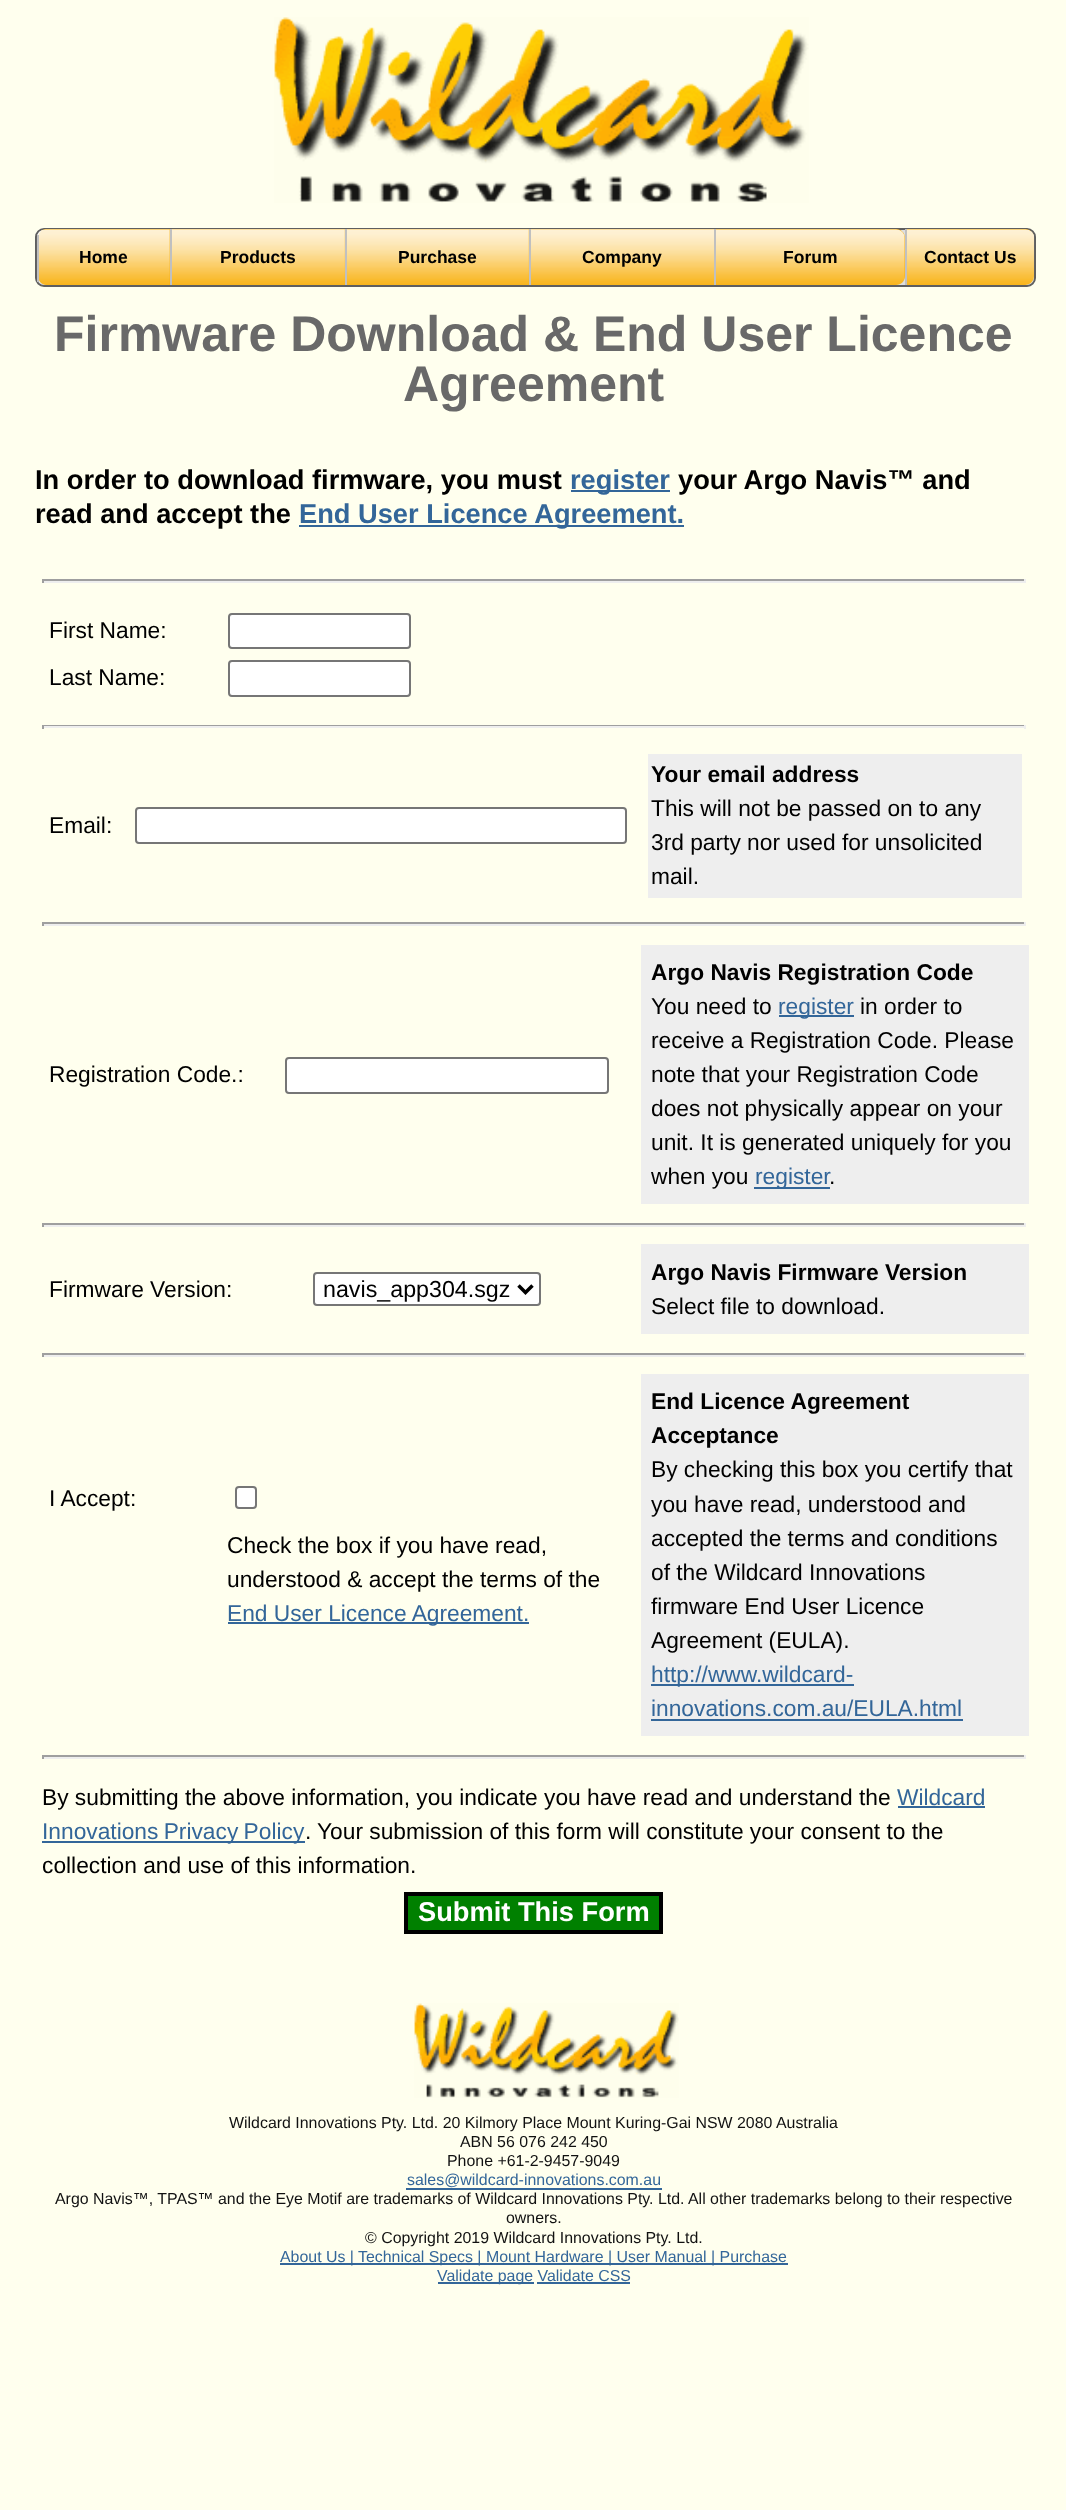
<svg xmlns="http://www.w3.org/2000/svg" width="1066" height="2510">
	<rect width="100%" height="100%" fill="#FFFFEE" />
	<image x="274" y="17" width="535" height="186" href="assets/img1.png" />
	<rect x="36" y="229" width="999" height="57" rx="8" fill="#DEDEDE" stroke="#5F5F5F" stroke-width="2" />
	<path d="M46 229H170V285H46C42 285 38 281 38 276V238C38 233 42 229 46 229Z" fill="#F8AC00" />
	<image x="36" y="229" width="134" height="56" href="assets/img2.png" />
	<rect x="37" y="235" width="2" height="47" fill="#C0C0C0" />
	<text x="79" y="263" font-family="Liberation Sans" font-size="17.5" font-weight="700" fill="#000000">Home</text>
	<rect x="172" y="229" width="173" height="56" fill="#F8AC00" />
	<image x="169" y="229" width="176" height="56" href="assets/img3.png" />
	<rect x="170" y="229" width="2" height="56" fill="#C0C0C0" />
	<text x="220" y="263" font-family="Liberation Sans" font-size="17.5" font-weight="700" fill="#000000">Products</text>
	<rect x="347" y="229" width="182" height="56" fill="#F8AC00" />
	<image x="344" y="229" width="185" height="56" href="assets/img4.png" />
	<rect x="345" y="229" width="2" height="56" fill="#C0C0C0" />
	<text x="398" y="263" font-family="Liberation Sans" font-size="17.5" font-weight="700" fill="#000000">Purchase</text>
	<rect x="531" y="229" width="183" height="56" fill="#F8AC00" />
	<image x="528" y="229" width="186" height="56" href="assets/img5.png" />
	<rect x="529" y="229" width="2" height="56" fill="#C0C0C0" />
	<text x="582" y="263" font-family="Liberation Sans" font-size="17.5" font-weight="700" fill="#000000">Company</text>
	<path d="M716 229H896C901 229 905 233 905 238V276C905 281 901 285 896 285H716Z" fill="#F8AC00" />
	<image x="716" y="229" width="189" height="56" href="assets/img6.png" />
	<rect x="714" y="229" width="2" height="56" fill="#C0C0C0" />
	<text x="783" y="263" font-family="Liberation Sans" font-size="17.5" font-weight="700" fill="#000000">Forum</text>
	<path d="M907 229H1025C1030 229 1034 233 1034 238V276C1034 281 1030 285 1025 285H907Z" fill="#F8AC00" />
	<image x="904" y="229" width="131" height="56" href="assets/img7.png" />
	<rect x="905" y="229" width="2" height="56" fill="#C0C0C0" />
	<text x="924" y="263" font-family="Liberation Sans" font-size="17.5" font-weight="700" fill="#000000">Contact Us</text>
	<g font-family="Liberation Sans" font-size="50" font-weight="700" fill="#696969">
		<text x="54" y="351">Firmware Download &amp; End User Licence</text>
		<text x="403" y="401">Agreement</text>
	</g>
	<text x="35" y="489" font-family="Liberation Sans" font-size="27.25" font-weight="700" fill="#000000">In order to download firmware, you must</text>
	<rect x="571" y="490" width="99" height="2" fill="#336699" />
	<text x="570" y="489" font-family="Liberation Sans" font-size="27.25" font-weight="700" fill="#336699">register</text>
	<g font-family="Liberation Sans" font-size="27.25" font-weight="700" fill="#000000">
		<text x="678" y="489">your Argo Navis™ and</text>
		<text x="35" y="523">read and accept the</text>
	</g>
	<rect x="299" y="525" width="385" height="2" fill="#336699" />
	<text x="299" y="523" font-family="Liberation Sans" font-size="27.25" font-weight="700" fill="#336699">End User Licence Agreement.</text>
	<rect x="42" y="579" width="984" height="2" fill="#9F9F9F" />
	<rect x="1024" y="579" width="2" height="4" fill="#EEEEEE" />
	<rect x="42" y="581" width="984" height="2" fill="#EEEEEE" />
	<rect x="42" y="579" width="2" height="4" fill="#9F9F9F" />
	<text x="49" y="638" font-family="Liberation Sans" font-size="22.75" fill="#000000">First Name:</text>
	<rect x="229" y="614" width="181" height="34" rx="3" fill="#FFFFFF" stroke="#767676" stroke-width="2" />
	<text x="49" y="685" font-family="Liberation Sans" font-size="22.75" fill="#000000">Last Name:</text>
	<rect x="229" y="661" width="181" height="35" rx="3" fill="#FFFFFF" stroke="#767676" stroke-width="2" />
	<rect x="42" y="725" width="984" height="1" fill="#9F9F9F" />
	<rect x="1024" y="725" width="2" height="4" fill="#EEEEEE" />
	<rect x="42" y="726" width="984" height="2" fill="#EEEEEE" />
	<rect x="42" y="725" width="2" height="4" fill="#9F9F9F" />
	<text x="49" y="833" font-family="Liberation Sans" font-size="22.75" fill="#000000">Email:</text>
	<rect x="136" y="808" width="490" height="35" rx="3" fill="#FFFFFF" stroke="#767676" stroke-width="2" />
	<rect x="648" y="754" width="374" height="144" fill="#EEEEEE" />
	<text x="651" y="782" font-family="Liberation Sans" font-size="22.75" font-weight="700" fill="#000000">Your email address</text>
	<g font-family="Liberation Sans" font-size="22.75" fill="#000000">
		<text x="651" y="816">This will not be passed on to any</text>
		<text x="651" y="850">3rd party nor used for unsolicited</text>
		<text x="651" y="884">mail.</text>
	</g>
	<rect x="42" y="922" width="984" height="2" fill="#9F9F9F" />
	<rect x="1024" y="922" width="2" height="4" fill="#EEEEEE" />
	<rect x="42" y="924" width="984" height="2" fill="#EEEEEE" />
	<rect x="42" y="922" width="2" height="4" fill="#9F9F9F" />
	<text x="49" y="1082" font-family="Liberation Sans" font-size="22.75" fill="#000000">Registration Code.:</text>
	<rect x="286" y="1058" width="322" height="35" rx="3" fill="#FFFFFF" stroke="#767676" stroke-width="2" />
	<rect x="641" y="945" width="388" height="259" fill="#EEEEEE" />
	<text x="651" y="980" font-family="Liberation Sans" font-size="22.75" font-weight="700" fill="#000000">Argo Navis Registration Code</text>
	<text x="651" y="1014" font-family="Liberation Sans" font-size="22.75" fill="#000000">You need to</text>
	<rect x="779" y="1015" width="75" height="2" fill="#336699" />
	<text x="778" y="1014" font-family="Liberation Sans" font-size="22.75" fill="#336699">register</text>
	<g font-family="Liberation Sans" font-size="22.75" fill="#000000">
		<text x="860" y="1014">in order to</text>
		<text x="651" y="1048">receive a Registration Code. Please</text>
		<text x="651" y="1082">note that your Registration Code</text>
		<text x="651" y="1116">does not physically appear on your</text>
		<text x="651" y="1150">unit. It is generated uniquely for you</text>
		<text x="651" y="1184">when you</text>
	</g>
	<rect x="754" y="1187" width="76" height="2" fill="#336699" />
	<text x="755" y="1184" font-family="Liberation Sans" font-size="22.75" fill="#336699">register</text>
	<text x="829" y="1184" font-family="Liberation Sans" font-size="22.75" fill="#000000">.</text>
	<rect x="42" y="1223" width="984" height="2" fill="#9F9F9F" />
	<rect x="1024" y="1223" width="2" height="4" fill="#EEEEEE" />
	<rect x="42" y="1225" width="984" height="2" fill="#EEEEEE" />
	<rect x="42" y="1223" width="2" height="4" fill="#9F9F9F" />
	<text x="49" y="1297" font-family="Liberation Sans" font-size="22.75" fill="#000000">Firmware Version:</text>
	<rect x="314" y="1273" width="226" height="32" rx="3" fill="#FFFFFF" stroke="#767676" stroke-width="2" />
	<path d="M518.5 1285.5L525.5 1292.5L532.5 1285.5" fill="none" stroke="#000000" stroke-width="3.5" />
	<text x="323" y="1297" font-family="Liberation Sans" font-size="23.25" fill="#000000">navis_app304.sgz</text>
	<rect x="641" y="1244" width="388" height="90" fill="#EEEEEE" />
	<text x="651" y="1280" font-family="Liberation Sans" font-size="22.75" font-weight="700" fill="#000000">Argo Navis Firmware Version</text>
	<text x="651" y="1314" font-family="Liberation Sans" font-size="22.75" fill="#000000">Select file to download.</text>
	<rect x="42" y="1353" width="984" height="2" fill="#9F9F9F" />
	<rect x="1024" y="1353" width="2" height="4" fill="#EEEEEE" />
	<rect x="42" y="1355" width="984" height="2" fill="#EEEEEE" />
	<rect x="42" y="1353" width="2" height="4" fill="#9F9F9F" />
	<text x="49" y="1506" font-family="Liberation Sans" font-size="22.75" fill="#000000">I Accept:</text>
	<rect x="236" y="1487" width="20" height="21" rx="3" fill="#FFFFFF" stroke="#767676" stroke-width="2" />
	<g font-family="Liberation Sans" font-size="22.75" fill="#000000">
		<text x="227" y="1553">Check the box if you have read,</text>
		<text x="227" y="1587">understood &amp; accept the terms of the</text>
	</g>
	<rect x="228" y="1622" width="301" height="2" fill="#336699" />
	<text x="227" y="1621" font-family="Liberation Sans" font-size="22.75" fill="#336699">End User Licence Agreement.</text>
	<rect x="641" y="1374" width="388" height="362" fill="#EEEEEE" />
	<g font-family="Liberation Sans" font-size="22.75" font-weight="700" fill="#000000">
		<text x="651" y="1409">End Licence Agreement</text>
		<text x="651" y="1443">Acceptance</text>
	</g>
	<g font-family="Liberation Sans" font-size="22.75" fill="#000000">
		<text x="651" y="1477">By checking this box you certify that</text>
		<text x="651" y="1512">you have read, understood and</text>
		<text x="651" y="1546">accepted the terms and conditions</text>
		<text x="651" y="1580">of the Wildcard Innovations</text>
		<text x="651" y="1614">firmware End User Licence</text>
		<text x="651" y="1648">Agreement (EULA).</text>
	</g>
	<rect x="651" y="1684" width="203" height="2" fill="#336699" />
	<g font-family="Liberation Sans" font-size="22.75" fill="#336699">
		<text x="651" y="1682">http://www.wildcard-</text>
		<text x="651" y="1716">innovations.com.au/EULA.html</text>
	</g>
	<rect x="651" y="1719" width="312" height="2" fill="#336699" />
	<rect x="42" y="1755" width="984" height="2" fill="#9F9F9F" />
	<rect x="1024" y="1755" width="2" height="4" fill="#EEEEEE" />
	<rect x="42" y="1757" width="984" height="2" fill="#EEEEEE" />
	<rect x="42" y="1755" width="2" height="4" fill="#9F9F9F" />
	<text x="42" y="1805" font-family="Liberation Sans" font-size="22.75" fill="#000000">By submitting the above information, you indicate you have read and understand the</text>
	<text x="897" y="1805" font-family="Liberation Sans" font-size="22.75" fill="#336699">Wildcard</text>
	<rect x="898" y="1806" width="87" height="2" fill="#336699" />
	<rect x="42" y="1841" width="263" height="2" fill="#336699" />
	<text x="42" y="1839" word-spacing="-1" font-family="Liberation Sans" font-size="22.75" fill="#336699">Innovations Privacy Policy</text>
	<g font-family="Liberation Sans" font-size="22.75" fill="#000000">
		<text x="305" y="1839">.</text>
		<text x="317" y="1839">Your submission of this form will constitute your consent to the</text>
		<text x="42" y="1873">collection and use of this information.</text>
	</g>
	<rect x="406" y="1894" width="255" height="38" fill="#008000" stroke="#000000" stroke-width="4" />
	<text x="418" y="1921" font-family="Liberation Sans" font-size="27.25" font-weight="700" fill="#FFFFFF">Submit This Form</text>
	<image x="414" y="2003" width="265" height="95" href="assets/img8.png" />
	<g font-family="Liberation Sans" font-size="15.92" fill="#111111">
		<text x="229" y="2128">Wildcard Innovations Pty. Ltd. 20 Kilmory Place Mount Kuring-Gai NSW 2080 Australia</text>
		<text x="460" y="2147">ABN 56 076 242 450</text>
		<text x="447" y="2166">Phone +61-2-9457-9049</text>
	</g>
	<text x="407" y="2185" font-family="Liberation Sans" font-size="15.92" fill="#336699">sales@wildcard-innovations.com.au</text>
	<rect x="406" y="2188" width="256" height="2" fill="#336699" />
	<g font-family="Liberation Sans" font-size="15.92" fill="#111111">
		<text x="55" y="2204">Argo Navis™, TPAS™ and the Eye Motif are trademarks of Wildcard Innovations Pty. Ltd. All other trademarks belong to their respective</text>
		<text x="506" y="2223">owners.</text>
		<text x="365" y="2243">© Copyright 2019 Wildcard Innovations Pty. Ltd.</text>
	</g>
	<rect x="280" y="2263" width="508" height="2" fill="#336699" />
	<g font-family="Liberation Sans" font-size="15.92" fill="#336699">
		<text x="280" y="2262">About Us |</text>
		<text x="358" y="2262">Technical Specs | Mount Hardware | User Manual | Purchase</text>
	</g>
	<rect x="438" y="2282" width="96" height="2" fill="#336699" />
	<text x="437" y="2281" font-family="Liberation Sans" font-size="15.92" fill="#336699">Validate page Validate CSS</text>
	<rect x="537" y="2282" width="93" height="2" fill="#336699" />
</svg>
